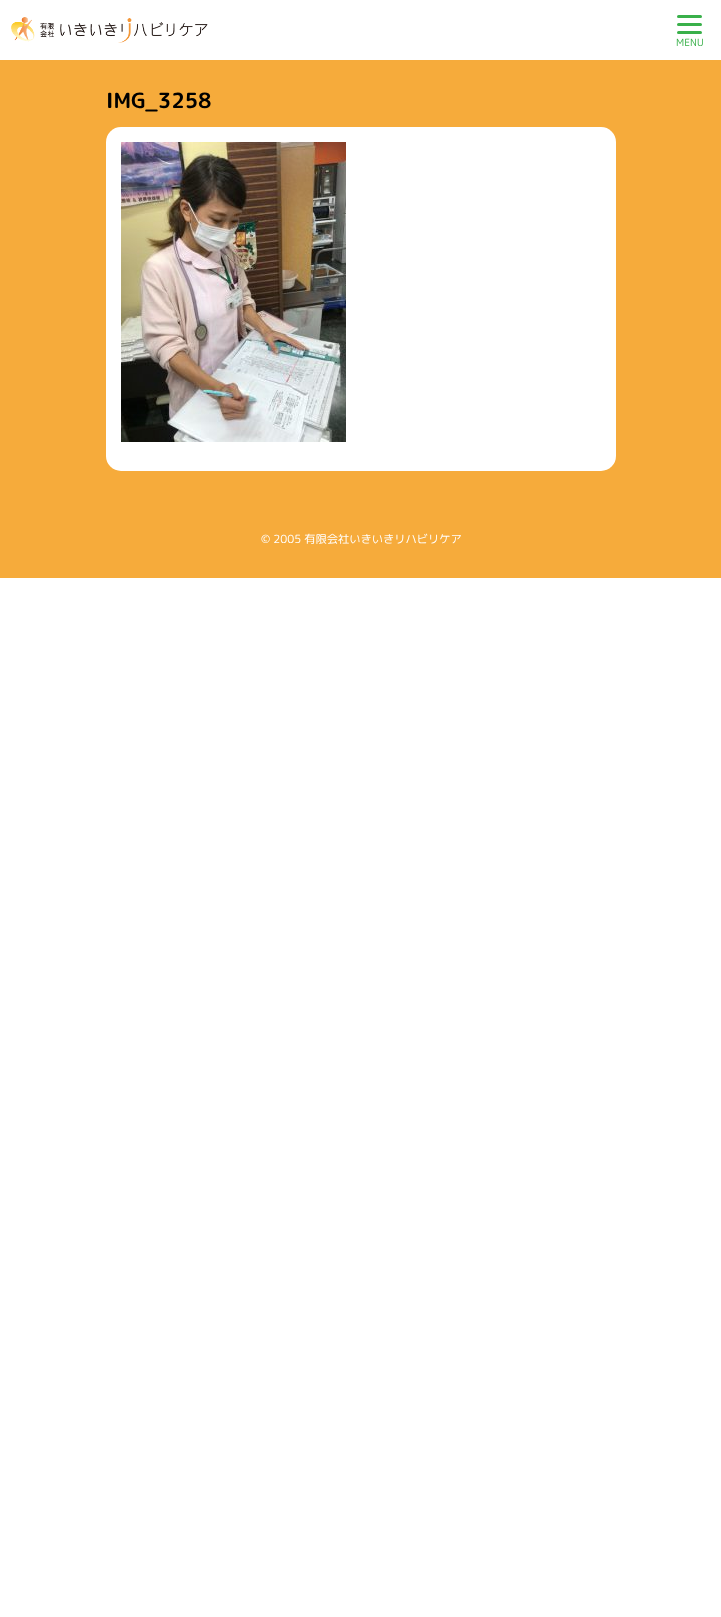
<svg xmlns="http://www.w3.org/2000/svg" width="721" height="1617">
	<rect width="100%" height="100%" fill="#FFFFFF" />
	<image x="11" y="17" width="197" height="26" href="assets/img1.png" />
	<rect x="677" y="15" width="25" height="3" rx="1.5" fill="#39B04A" />
	<rect x="677" y="23" width="25" height="3" rx="1.5" fill="#39B04A" />
	<rect x="677" y="31" width="25" height="3" rx="1.5" fill="#39B04A" />
	<text x="676" y="46" font-family="'Rounded Mplus 1c'" font-size="10" fill="#39B04A">MENU</text>
	<rect x="0" y="60" width="721" height="518" fill="#F6AB3B" />
	<text x="106" y="108" font-family="'Rounded Mplus 1c Bold'" font-size="21" font-weight="700" fill="#000000">IMG_3258</text>
	<rect x="106" y="127" width="510" height="344" rx="15" fill="#FFFFFF" />
	<image x="121" y="142" width="225" height="300" href="assets/img2.png" />
	<text x="261" y="543" font-family="'Rounded Mplus 1c'" font-size="11.25" fill="#FFFFFF">© 2005 有限会社いきいきリハビリケア</text>
</svg>
